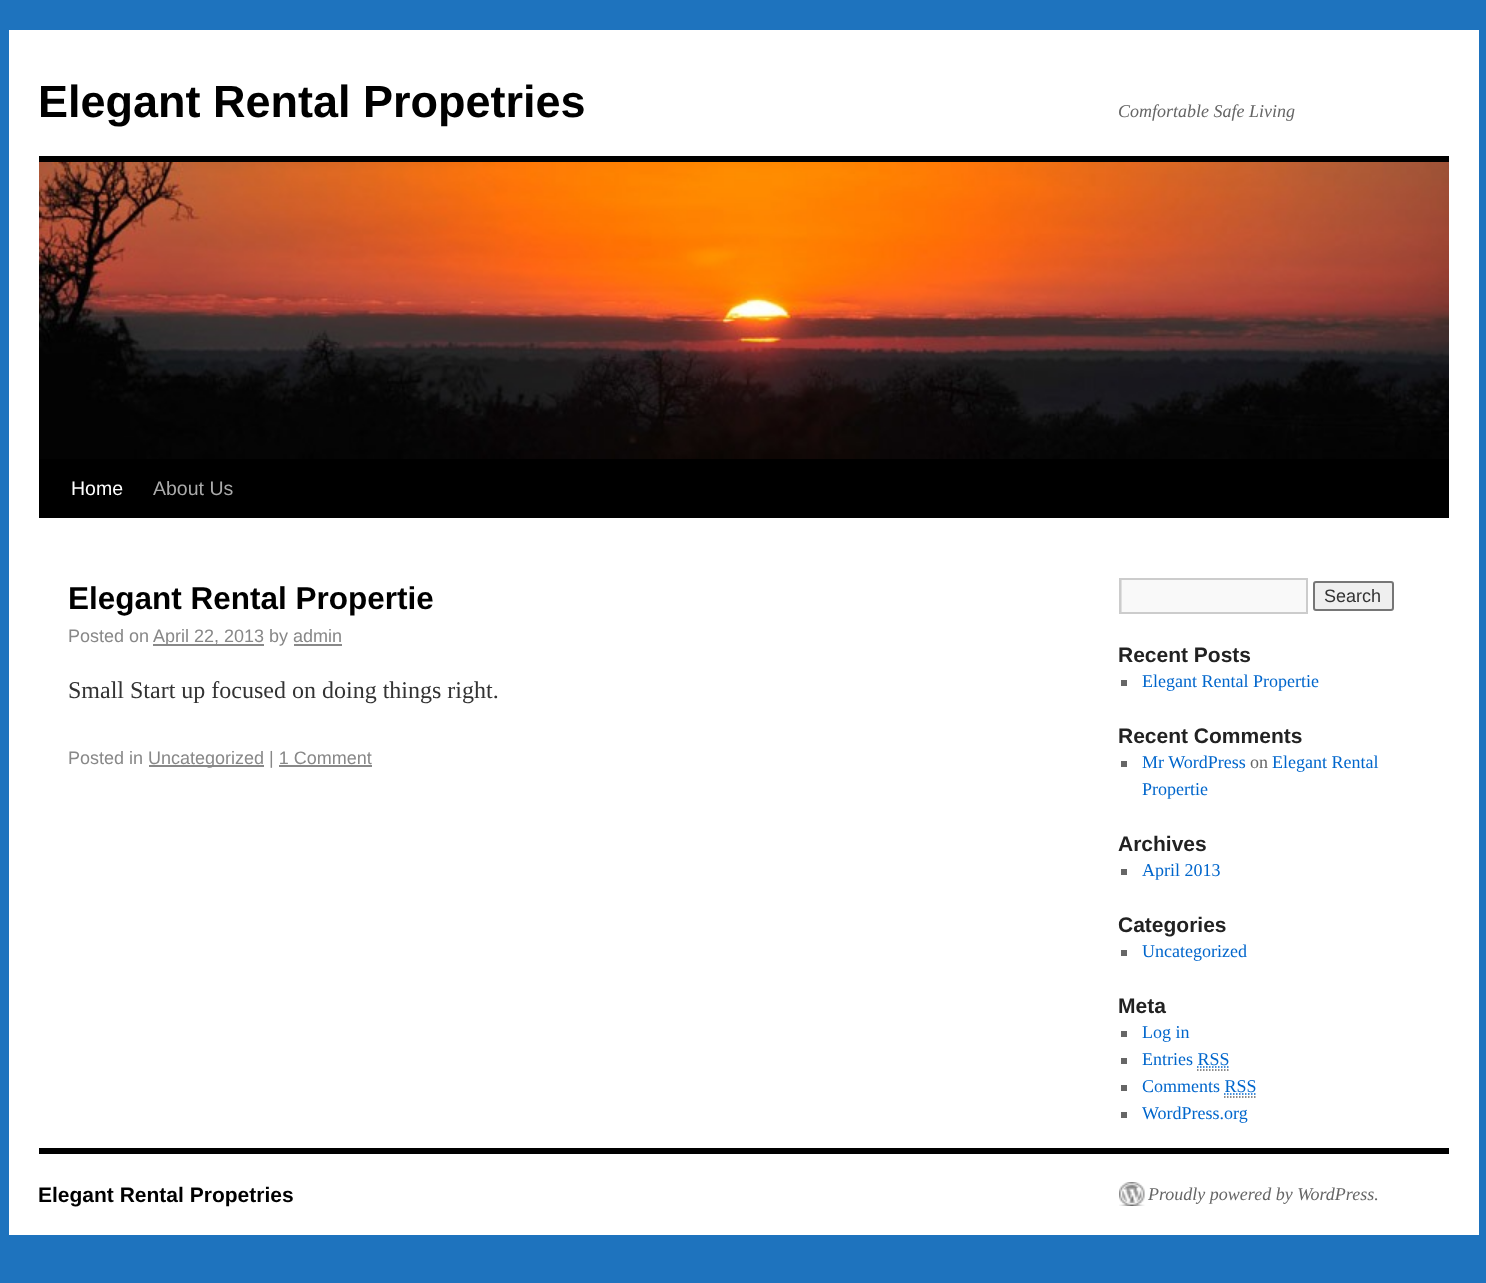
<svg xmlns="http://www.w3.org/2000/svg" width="1486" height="1283">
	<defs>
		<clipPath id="clip1"><rect x="1121" y="579" width="186" height="33" /></clipPath>
	</defs>
	<rect width="100%" height="100%" fill="#1E73BE" />
	<rect x="9" y="30" width="1470" height="1205" fill="#FFFFFF" />
	<text x="38" y="117" font-family="Liberation Sans" font-size="45" font-weight="700" fill="#000000">Elegant Rental Propetries</text>
	<text x="1118" y="117" font-family="Liberation Serif" font-size="18" font-style="italic" fill="#666666">Comfortable Safe Living</text>
	<rect x="39" y="156" width="1410" height="6" fill="#000000" />
	<rect x="39" y="459" width="1410" height="59" fill="#000000" />
	<image x="39" y="162" width="1410" height="297" href="assets/img1.png" />
	<text x="71" y="495" font-family="Liberation Sans" font-size="19.5" fill="#FFFFFF">Home</text>
	<text x="153" y="495" font-family="Liberation Sans" font-size="19.5" fill="#AAAAAA">About Us</text>
	<text x="68" y="609" font-family="Liberation Sans" font-size="31.5" font-weight="700" fill="#000000">Elegant Rental Propertie</text>
	<text x="68" y="642" font-family="Liberation Sans" font-size="18" fill="#888888">Posted on</text>
	<rect x="153" y="644" width="111" height="2" fill="#888888" />
	<text x="153" y="642" font-family="Liberation Sans" font-size="18" fill="#888888">April 22, 2013 by admin</text>
	<rect x="294" y="644" width="48" height="2" fill="#888888" />
	<text x="68" y="698" font-family="Liberation Serif" font-size="24" fill="#333333">Small Start up focused on doing things right.</text>
	<text x="68" y="764" font-family="Liberation Sans" font-size="18" fill="#888888">Posted in</text>
	<rect x="149" y="765" width="115" height="2" fill="#888888" />
	<text x="148" y="764" font-family="Liberation Sans" font-size="18" fill="#888888">Uncategorized | 1 Comment</text>
	<rect x="279" y="765" width="93" height="2" fill="#888888" />
	<rect x="1122" y="580" width="184" height="32" fill="#F9F9F9" />
	<g clip-path="url(#clip1)">
		<path d="M972 430H1455V760H972ZM1122 580H1308V614H1122Z" fill="#E0E0E0" fill-rule="evenodd" />
	</g>
	<rect x="1120" y="579" width="187" height="34" fill="none" stroke="#CCCCCC" stroke-width="2" />
	<rect x="1314" y="582" width="79" height="28" rx="2" fill="#EFEFEF" stroke="#767676" stroke-width="2" />
	<text x="1324" y="602" font-family="Liberation Sans" font-size="18" fill="#333333">Search</text>
	<text x="1118" y="662" font-family="Liberation Sans" font-size="21" font-weight="700" fill="#222222">Recent Posts</text>
	<rect x="1121" y="680" width="6" height="6" fill="#666666" />
	<text x="1142" y="687" font-family="Liberation Serif" font-size="18" fill="#0066CC">Elegant Rental Propertie</text>
	<text x="1118" y="743" font-family="Liberation Sans" font-size="21" font-weight="700" fill="#222222">Recent Comments</text>
	<rect x="1121" y="761" width="6" height="6" fill="#666666" />
	<text x="1142" y="768" font-family="Liberation Serif" font-size="18" fill="#0066CC">Mr WordPress</text>
	<text x="1250" y="768" font-family="Liberation Serif" font-size="18" fill="#666666">on</text>
	<g font-family="Liberation Serif" font-size="18" fill="#0066CC">
		<text x="1272" y="768">Elegant Rental</text>
		<text x="1142" y="795">Propertie</text>
	</g>
	<text x="1118" y="851" font-family="Liberation Sans" font-size="21" font-weight="700" fill="#222222">Archives</text>
	<rect x="1121" y="869" width="6" height="6" fill="#666666" />
	<text x="1142" y="876" font-family="Liberation Serif" font-size="18" fill="#0066CC">April 2013</text>
	<text x="1118" y="932" font-family="Liberation Sans" font-size="21" font-weight="700" fill="#222222">Categories</text>
	<rect x="1121" y="950" width="6" height="6" fill="#666666" />
	<text x="1142" y="957" font-family="Liberation Serif" font-size="18" fill="#0066CC">Uncategorized</text>
	<text x="1118" y="1013" font-family="Liberation Sans" font-size="21" font-weight="700" fill="#222222">Meta</text>
	<rect x="1121" y="1031" width="6" height="6" fill="#666666" />
	<text x="1142" y="1038" font-family="Liberation Serif" font-size="18" fill="#0066CC">Log in</text>
	<rect x="1121" y="1058" width="6" height="6" fill="#666666" />
	<text x="1142" y="1065" font-family="Liberation Serif" font-size="18" fill="#0066CC">Entries RSS</text>
	<path d="M1197 1070H1228.5" fill="none" stroke="#666666" stroke-width="1.5" stroke-dasharray="1.5 1.5" />
	<path d="M1197 1067H1229" fill="none" stroke="#0066CC" stroke-width="1.5" stroke-dasharray="1.5 1.5" />
	<rect x="1121" y="1085" width="6" height="6" fill="#666666" />
	<text x="1142" y="1092" font-family="Liberation Serif" font-size="18" fill="#0066CC">Comments RSS</text>
	<path d="M1224 1097H1255.5" fill="none" stroke="#666666" stroke-width="1.5" stroke-dasharray="1.5 1.5" />
	<path d="M1224 1094H1256" fill="none" stroke="#0066CC" stroke-width="1.5" stroke-dasharray="1.5 1.5" />
	<rect x="1121" y="1112" width="6" height="6" fill="#666666" />
	<text x="1142" y="1119" font-family="Liberation Serif" font-size="18" fill="#0066CC">WordPress.org</text>
	<rect x="39" y="1148" width="1410" height="6" fill="#000000" />
	<text x="38" y="1202" font-family="Liberation Sans" font-size="21" font-weight="700" fill="#000000">Elegant Rental Propetries</text>
	<image x="1119" y="1182" width="26" height="24" href="assets/img2.png" />
	<text x="1148" y="1200" font-family="Liberation Serif" font-size="18" font-style="italic" fill="#666666">Proudly powered by WordPress.</text>
</svg>
